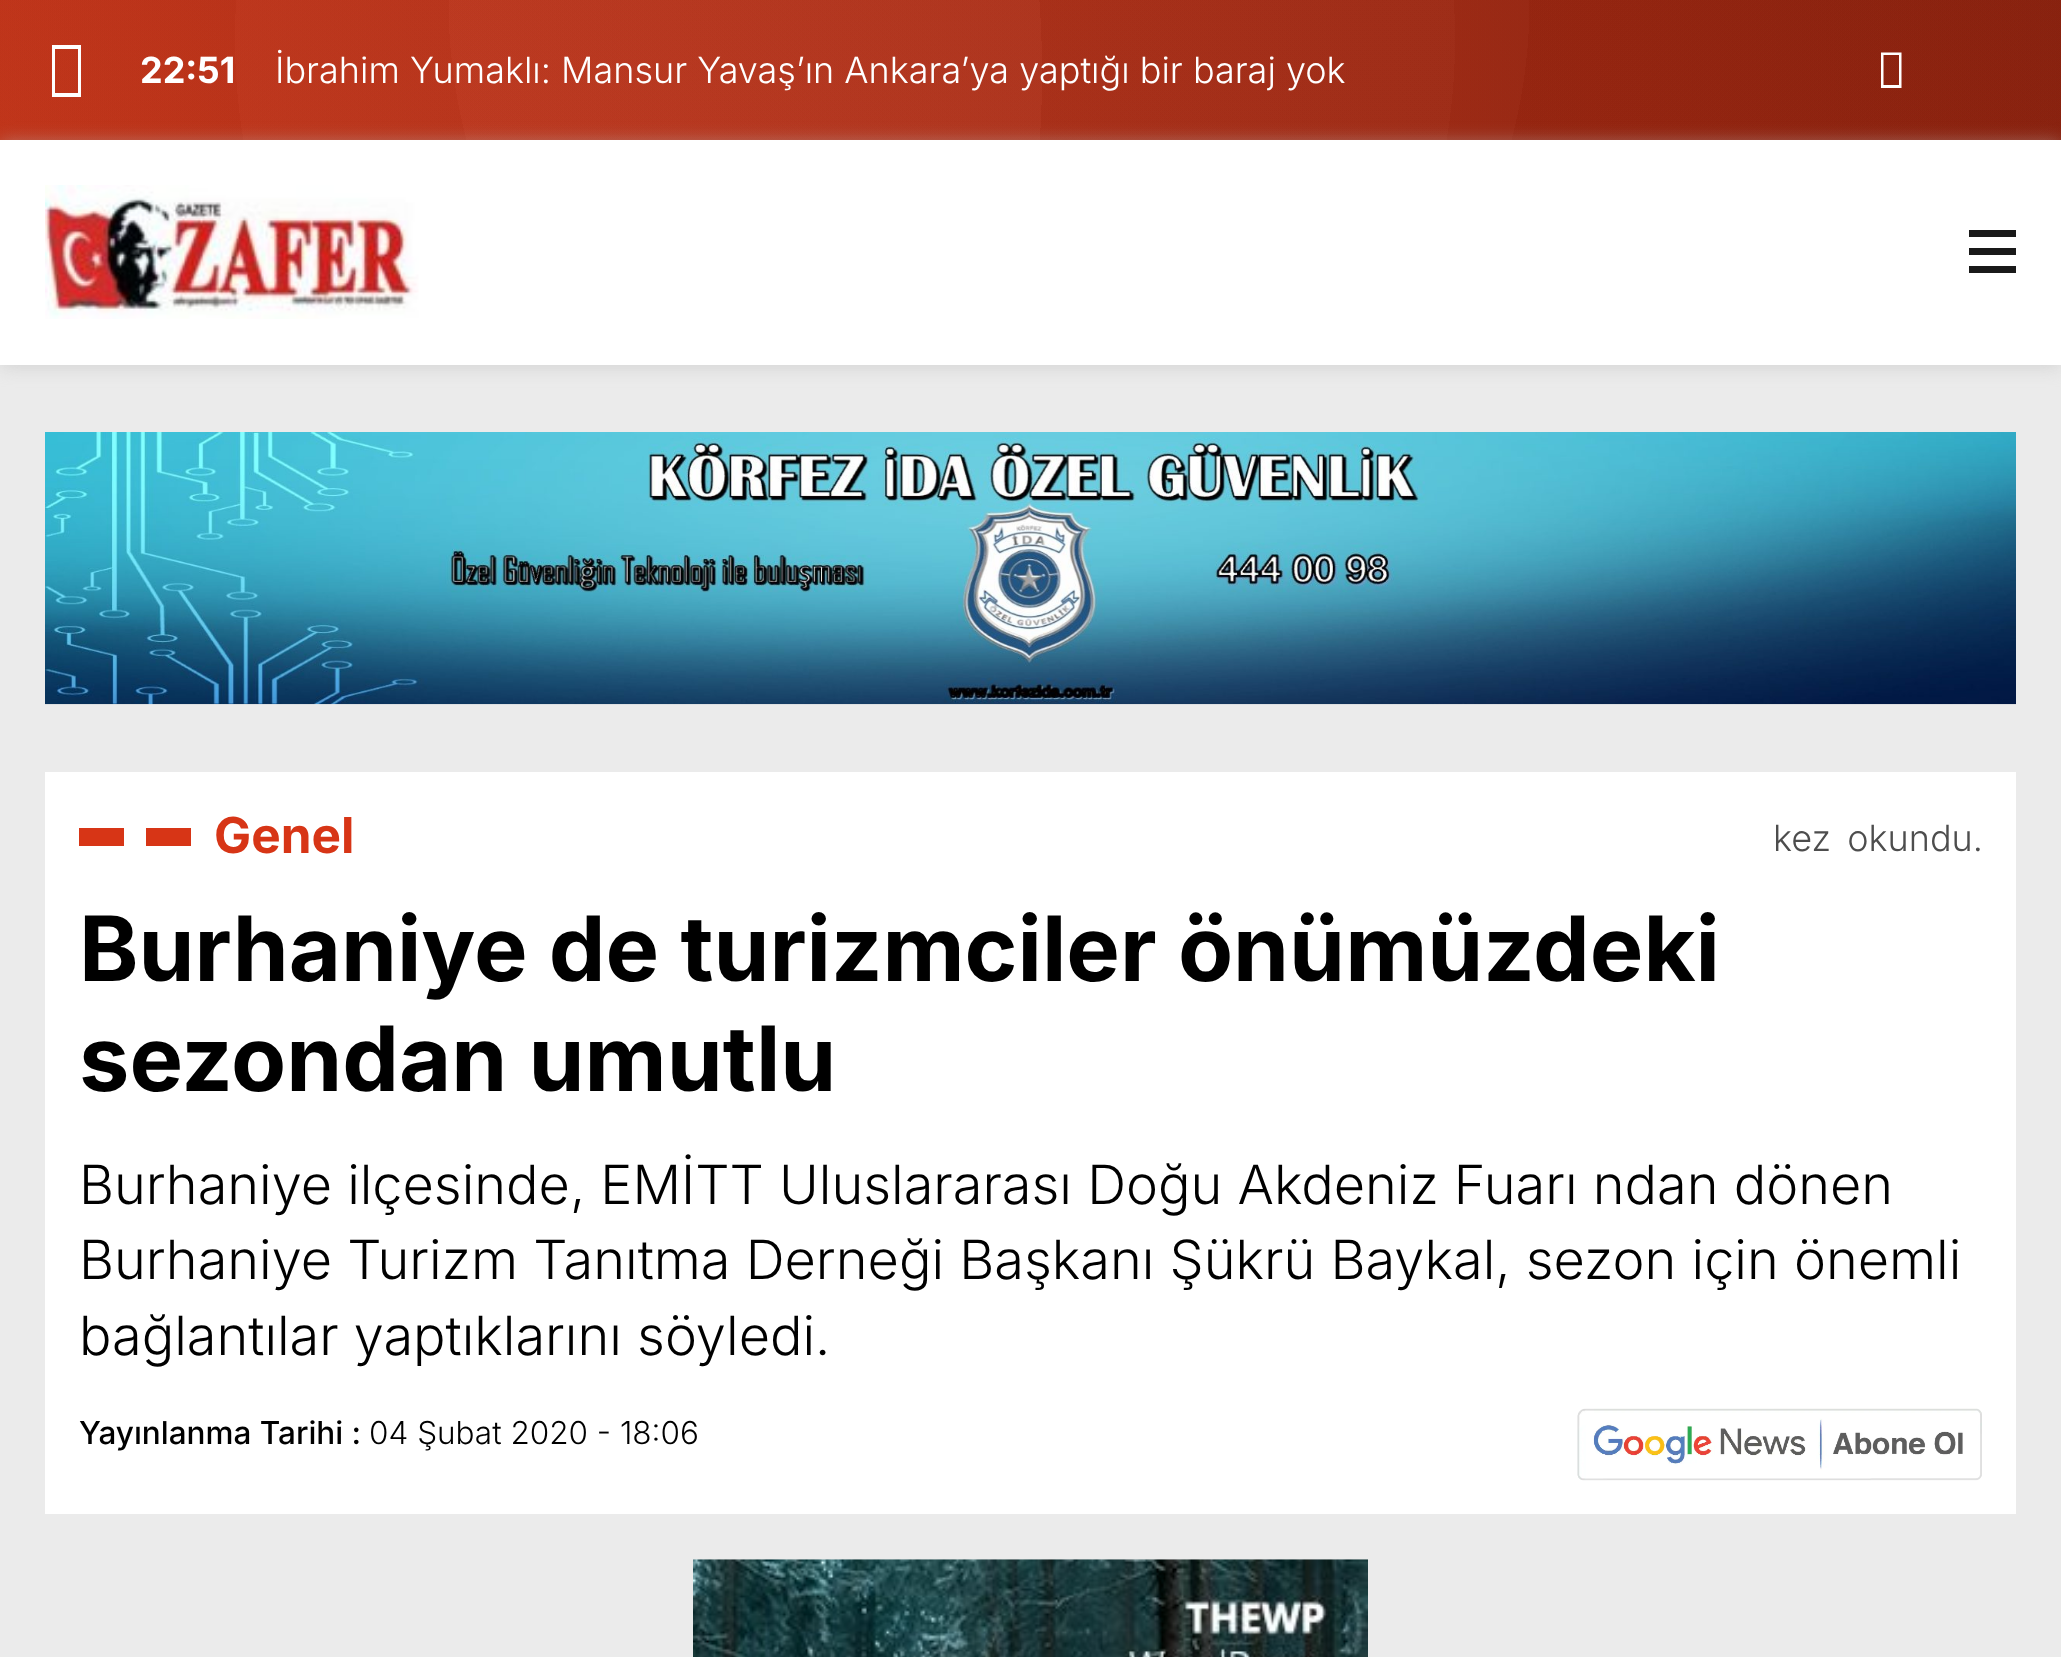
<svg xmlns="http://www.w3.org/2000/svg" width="2061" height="1657">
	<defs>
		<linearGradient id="g1" gradientUnits="userSpaceOnUse" x1="2009" y1="-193" x2="52" y2="332"><stop offset="0" stop-color="#9D2610" /><stop offset="1" stop-color="#D73516" /></linearGradient>
		<radialGradient id="g2" gradientUnits="userSpaceOnUse" cx="989" cy="1.4" r="1081"><stop offset="0" stop-color="#5D5D5D" stop-opacity="0.05" /><stop offset="0.5" stop-color="#5D5D5D" stop-opacity="0.05" /><stop offset="0.5" stop-color="#070707" stop-opacity="0.05" /><stop offset="1" stop-color="#070707" stop-opacity="0.05" /></radialGradient>
		<radialGradient id="g3" gradientUnits="userSpaceOnUse" cx="845" cy="39" r="1220"><stop offset="0" stop-color="#515151" stop-opacity="0.05" /><stop offset="0.5" stop-color="#515151" stop-opacity="0.05" /><stop offset="0.5" stop-color="#070707" stop-opacity="0.05" /><stop offset="1" stop-color="#070707" stop-opacity="0.05" /></radialGradient>
		<radialGradient id="g4" gradientUnits="userSpaceOnUse" cx="21" cy="73" r="2042"><stop offset="0" stop-color="#8B8B8B" stop-opacity="0.05" /><stop offset="0.5" stop-color="#8B8B8B" stop-opacity="0.05" /><stop offset="0.5" stop-color="#151515" stop-opacity="0.05" /><stop offset="1" stop-color="#151515" stop-opacity="0.05" /></radialGradient>
	</defs>
	<rect width="100%" height="100%" fill="#EBEBEB" />
	<rect x="0" y="0" width="2061" height="140" fill="url(#g1)" />
	<rect x="0" y="0" width="2061" height="140" fill="url(#g2)" />
	<rect x="0" y="0" width="2061" height="140" fill="url(#g3)" />
	<rect x="0" y="0" width="2061" height="140" fill="url(#g4)" />
	<path d="M52 97V45H81V97ZM55 93H78V49H55Z" fill="#FFFFFF" />
	<text x="140" y="83" font-family="Inter" font-size="36" font-weight="700" fill="#FFFFFF">22:51</text>
	<text x="275" y="83" font-family="Inter" font-size="36" font-weight="300" fill="#FFFFFF">İbrahim Yumaklı: Mansur Yavaş’ın Ankara’ya yaptığı bir baraj yok</text>
	<path d="M1881 88V52.5H1901.5V88ZM1883.5 85H1899V55H1883.5Z" fill="#FFFFFF" />
	<rect x="0" y="142" width="2061" height="225" fill="#BABABA" fill-opacity="0.5" filter="blur(9px)" />
	<rect x="0" y="140" width="2061" height="225" fill="#FFFFFF" />
	<image x="45" y="185" width="374" height="134" href="assets/img1.png" />
	<rect x="1969" y="248" width="47" height="7" fill="#191919" />
	<rect x="1969" y="230" width="47" height="7" fill="#191919" />
	<rect x="1969" y="266" width="47" height="7" fill="#191919" />
	<image x="45" y="432" width="1971" height="273" href="assets/img2.png" />
	<rect x="45" y="772" width="1971" height="742" fill="#FFFFFF" />
	<rect x="79" y="828" width="45" height="18" fill="#D73516" />
	<rect x="146" y="828" width="45" height="18" fill="#D73516" />
	<text x="214" y="853" font-family="Inter" font-size="49.5" font-weight="700" fill="#D73516">Genel</text>
	<text x="1773" y="851" word-spacing="6" font-family="Inter" font-size="36" font-weight="300" fill="#4D4D4D">kez okundu.</text>
	<g font-family="Inter" font-size="90" font-weight="700" fill="#000000">
		<text x="79" y="981">Burhaniye de turizmciler önümüzdeki</text>
		<text x="79" y="1091">sezondan umutlu</text>
	</g>
	<g font-family="Inter" font-size="54" font-weight="300" fill="#000000">
		<text x="79" y="1204">Burhaniye ilçesinde, EMİTT Uluslararası Doğu Akdeniz Fuarı ndan dönen</text>
		<text x="79" y="1279">Burhaniye Turizm Tanıtma Derneği Başkanı Şükrü Baykal, sezon için önemli</text>
		<text x="79" y="1355">bağlantılar yaptıklarını söyledi.</text>
	</g>
	<text x="79" y="1444" font-family="Inter" font-size="31.5" font-weight="500" fill="#000000">Yayınlanma Tarihi :</text>
	<text x="369" y="1444" font-family="Inter" font-size="31.5" font-weight="300" fill="#000000">04 Şubat 2020 - 18:06</text>
	<image x="1577" y="1408" width="405" height="73" href="assets/img3.png" />
	<image x="693" y="1559" width="675" height="98" href="assets/img4.png" />
</svg>
